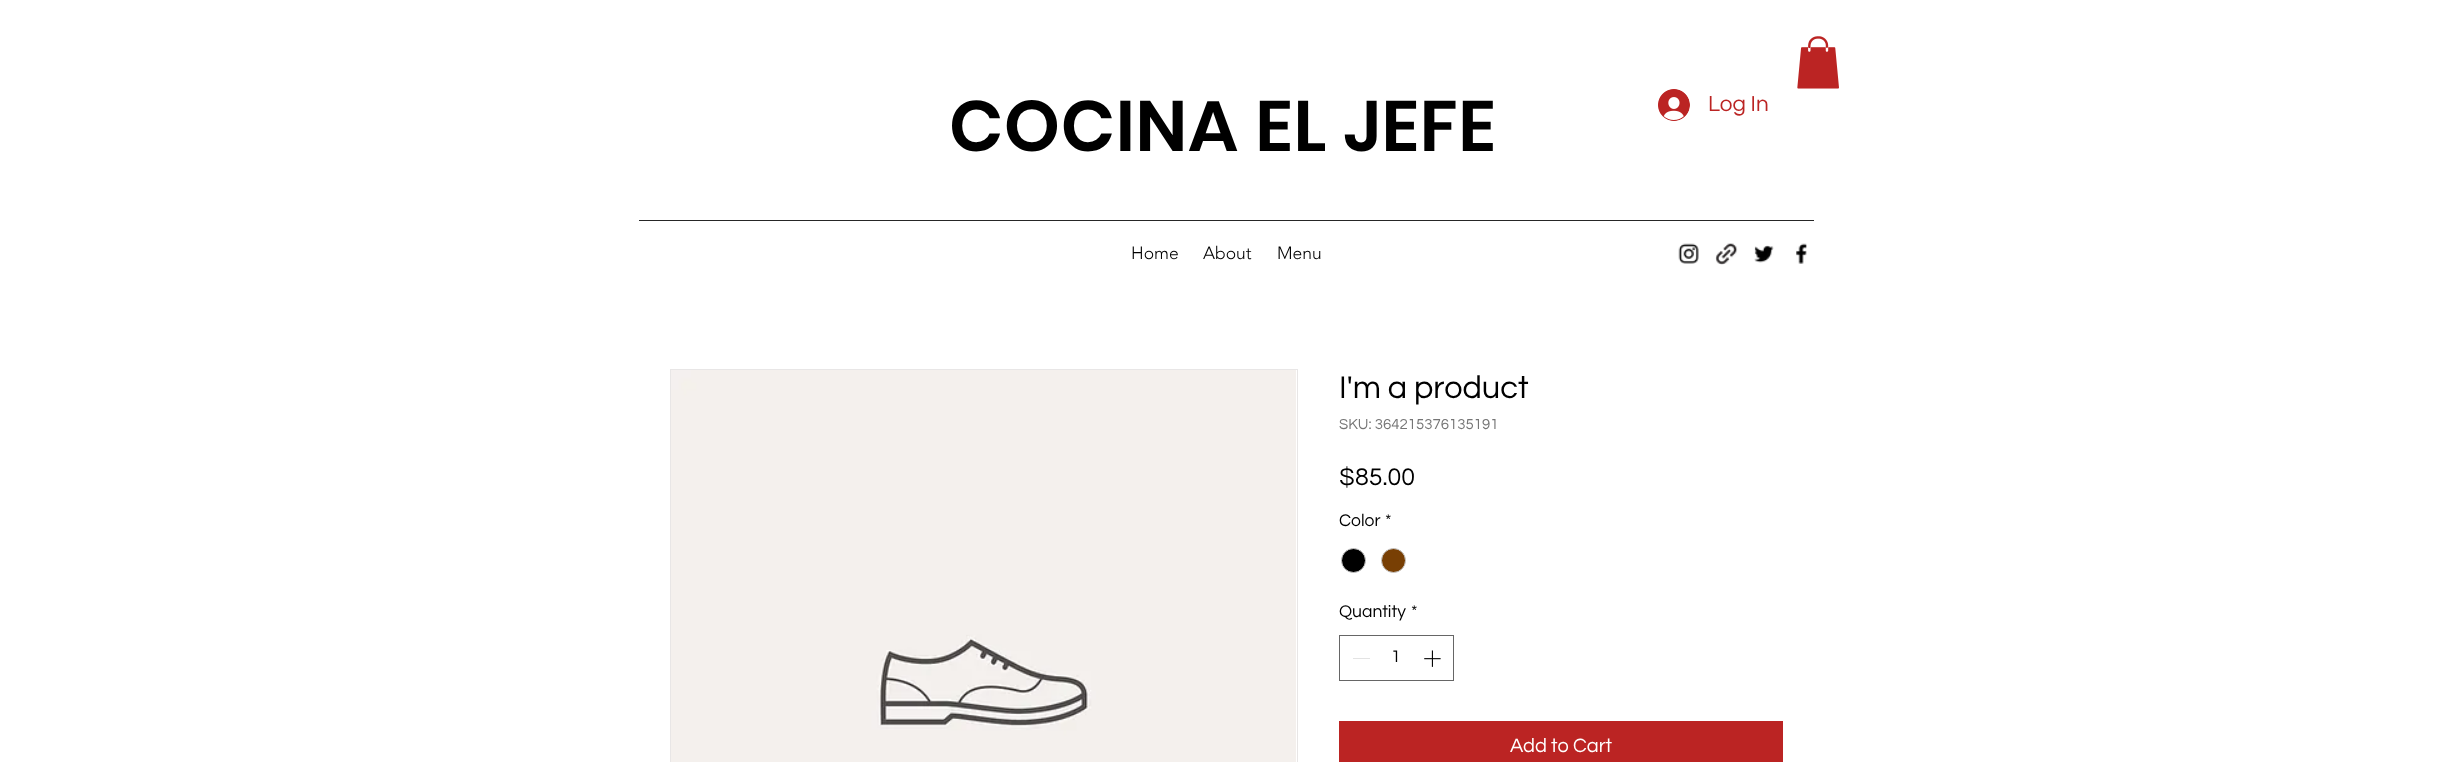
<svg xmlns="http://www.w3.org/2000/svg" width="2452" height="762">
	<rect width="100%" height="100%" fill="#FFFFFF" />
	<image x="1797" y="36" width="42" height="53" href="assets/img1.png" />
	<text x="949" y="151" font-family="Poppins" font-size="71.25" font-weight="600" letter-spacing="0.75" fill="#000000">COCINA EL JEFE</text>
	<image x="1658" y="89" width="32" height="32" href="assets/img2.png" />
	<text x="1708" y="111" font-family="Questrial" font-size="22.5" fill="#BB2423">Log In</text>
	<rect x="639" y="220" width="1175" height="1" fill="#262626" />
	<g font-family="'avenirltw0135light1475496'" font-size="17.5" font-weight="300" fill="#000000">
		<text x="1131" y="259">Home</text>
		<text x="1203" y="259">About</text>
		<text x="1277" y="259">Menu</text>
	</g>
	<image x="1678" y="243" width="21" height="21" href="assets/img3.png" />
	<image x="1715" y="243" width="23" height="22" href="assets/img4.png" />
	<image x="1754" y="245" width="20" height="18" href="assets/img5.png" />
	<image x="1796" y="243" width="11" height="21" href="assets/img6.png" />
	<rect x="670.5" y="369.5" width="627" height="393" fill="none" stroke="#E8E6E6" />
	<image x="671" y="370" width="625" height="392" href="assets/img7.png" />
	<text x="1339" y="398" font-family="Questrial" font-size="32.5" fill="#000000">I'm a product</text>
	<text x="1339" y="429" font-family="Questrial" font-size="15" fill="#757575">SKU: 364215376135191</text>
	<text x="1339" y="485" font-family="Questrial" font-size="25" fill="#000000">$85.00</text>
	<g font-family="Questrial" font-size="17.5" fill="#000000">
		<text x="1339" y="526">Color</text>
		<text x="1385" y="526">*</text>
	</g>
	<circle cx="1353.5" cy="560.5" r="12" fill="#000000" stroke="#C9C9C9" />
	<circle cx="1393.5" cy="560.5" r="12" fill="#783F04" stroke="#C9C9C9" />
	<g font-family="Questrial" font-size="17.5" fill="#000000">
		<text x="1339" y="617">Quantity</text>
		<text x="1411" y="617">*</text>
	</g>
	<rect x="1339.5" y="635.5" width="114" height="45" fill="none" stroke="#666666" />
	<rect x="1353" y="658" width="17" height="1" fill="#E3E3E3" />
	<text x="1391" y="662" font-family="Questrial" font-size="17.5" fill="#000000">1</text>
	<image x="1424" y="650" width="17" height="17" href="assets/img8.png" />
	<rect x="1339" y="721" width="444" height="41" fill="#BB2423" />
	<text x="1510" y="752" font-family="Questrial" font-size="20" fill="#FFFFFF">Add to Cart</text>
</svg>
